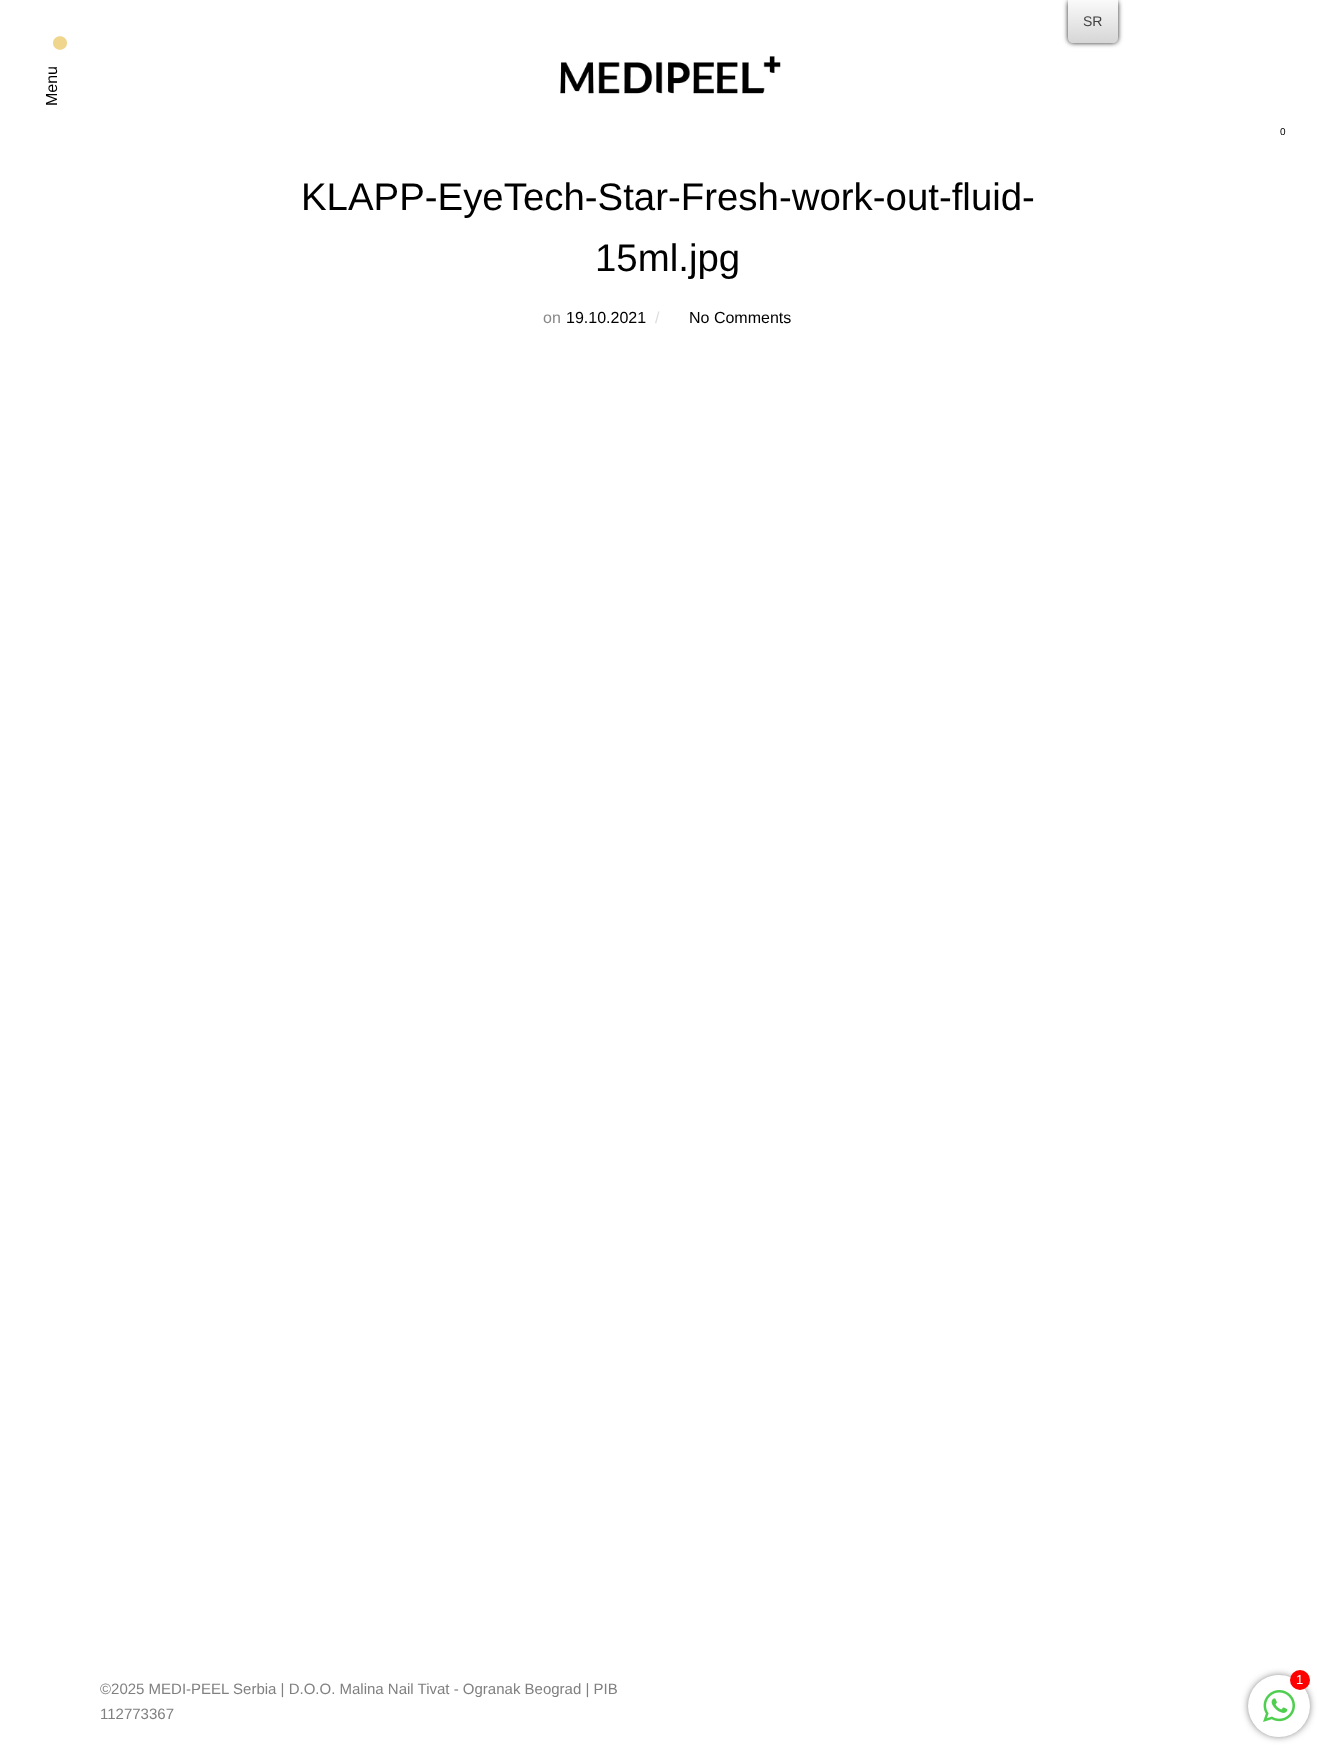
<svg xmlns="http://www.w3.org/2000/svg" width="1335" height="1757">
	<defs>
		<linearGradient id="g1" gradientUnits="userSpaceOnUse" x1="1093" y1="43" x2="1093" y2="0"><stop offset="0" stop-color="#D6D6D6" /><stop offset="1" stop-color="#FAFAFA" /></linearGradient>
	</defs>
	<rect width="100%" height="100%" fill="#FFFFFF" />
	<rect x="1068" y="0" width="50" height="43" rx="5" fill="#212121" filter="blur(2.5px)" />
	<path d="M1068 0H1118V38C1118 41 1116 43 1113 43H1073C1070 43 1068 41 1068 38Z" fill="url(#g1)" />
	<text x="1083" y="26" font-family="Liberation Sans" font-size="14" fill="#404040">SR</text>
	<path d="M53 43C53 34 67 34 67 43C67 52 53 52 53 43Z" fill="#F0D68D" />
	<text x="57" y="106" transform="rotate(-90 57 106)" font-family="Liberation Sans" font-size="16" fill="#000000">Menu</text>
	<image x="560" y="56" width="221" height="38" href="assets/img1.png" />
	<text x="1280" y="135" font-family="Liberation Sans" font-size="10" fill="#000000">0</text>
	<g font-family="Liberation Sans" font-size="38.4" fill="#000000">
		<text x="301" y="210">KLAPP-EyeTech-Star-Fresh-work-out-fluid-</text>
		<text x="595" y="271">15ml.jpg</text>
	</g>
	<text x="543" y="323" font-family="Liberation Sans" font-size="16" fill="#888888">on</text>
	<text x="566" y="323" font-family="Liberation Sans" font-size="16" fill="#000000">19.10.2021</text>
	<text x="655" y="323" font-family="Liberation Sans" font-size="16" fill="#DDDDDD">/</text>
	<text x="689" y="323" font-family="Liberation Sans" font-size="16" fill="#000000">No Comments</text>
	<rect x="1251" y="1678" width="56" height="56" rx="28" fill="#000000" filter="blur(5px)" />
	<circle cx="1279" cy="1706" r="31" fill="#FFFFFF" />
	<circle cx="1300" cy="1680" r="10" fill="#FF0000" />
	<text x="1296" y="1684" font-family="Liberation Sans" font-size="13" fill="#FFFFFF">1</text>
	<image x="1263" y="1690" width="32" height="32" href="assets/img2.png" />
	<g font-family="Liberation Sans" font-size="15" fill="#808080">
		<text x="100" y="1694">©2025 MEDI-PEEL Serbia | D.O.O. Malina Nail Tivat - Ogranak Beograd | PIB</text>
		<text x="100" y="1719">112773367</text>
	</g>
</svg>
